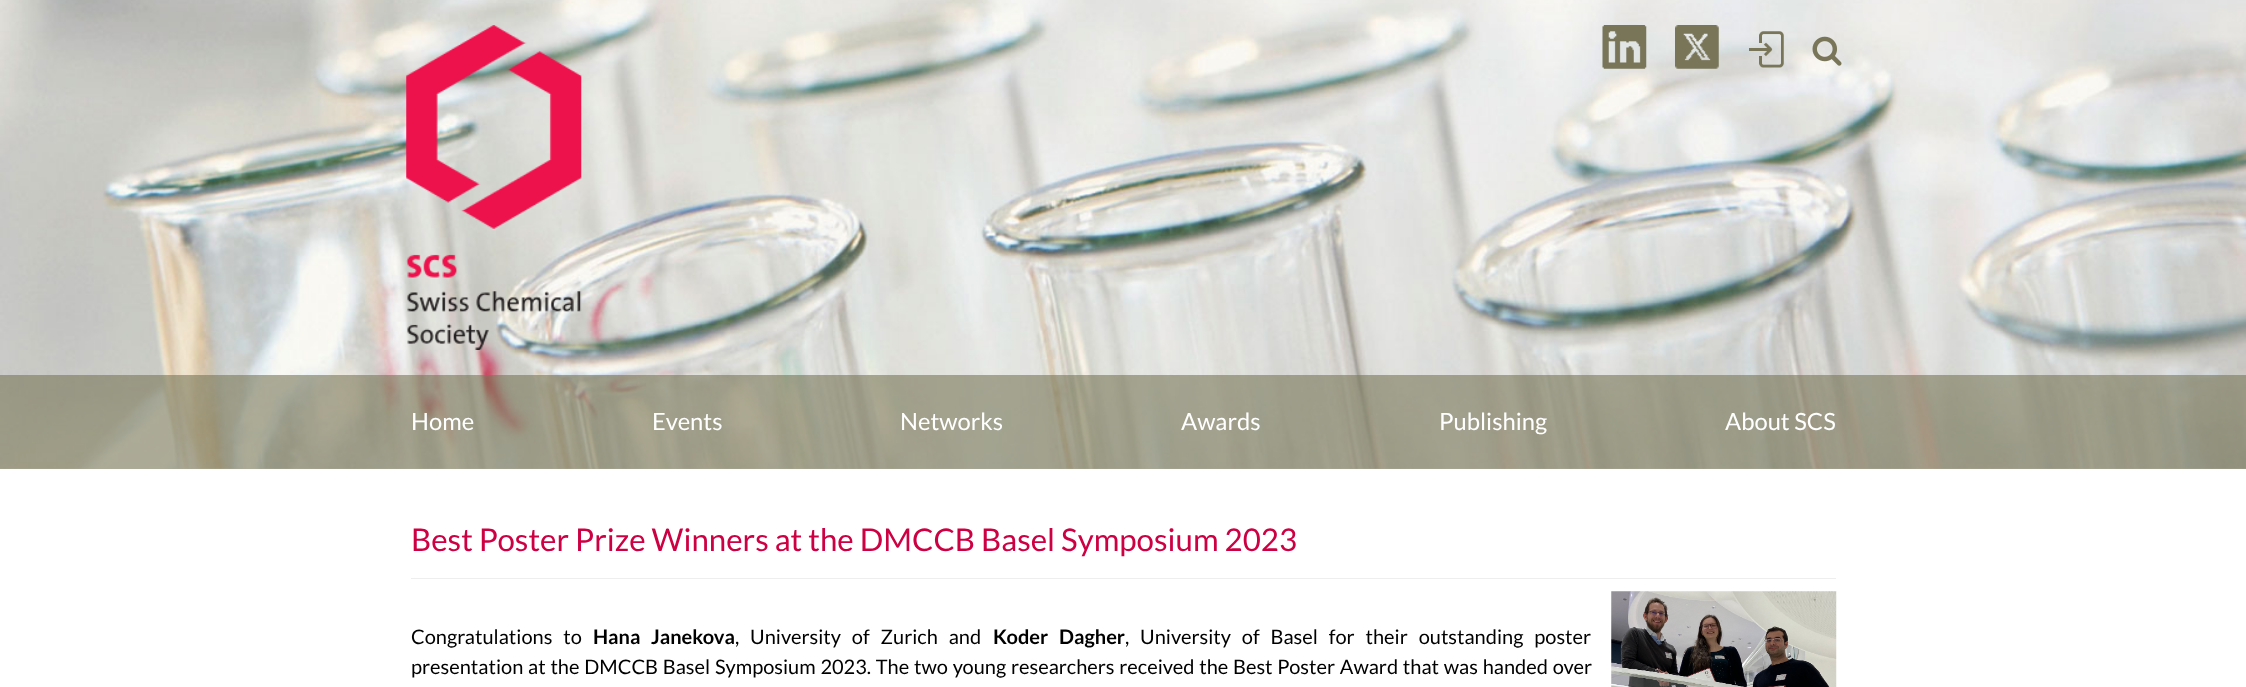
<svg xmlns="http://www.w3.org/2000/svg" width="2246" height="687">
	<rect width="100%" height="100%" fill="#FFFFFF" />
	<image x="0" y="0" width="2246" height="469" href="assets/img1.png" />
	<image x="406" y="25" width="176" height="325" href="assets/img2.png" />
	<image x="1602" y="25" width="45" height="44" href="assets/img3.png" />
	<image x="1675" y="25" width="44" height="44" href="assets/img4.png" />
	<image x="1749" y="31" width="35" height="37" href="assets/img5.png" />
	<image x="1812" y="36" width="30" height="30" href="assets/img6.png" />
	<rect x="0" y="375" width="2246" height="94" fill="#787659" fill-opacity="0.6" />
	<g font-family="Lato" font-size="23.75" fill="#FFFFFF">
		<text x="411" y="430">Home</text>
		<text x="652" y="430">Events</text>
		<text x="900" y="430">Networks</text>
		<text x="1181" y="430">Awards</text>
		<text x="1439" y="430">Publishing</text>
		<text x="1725" y="430">About SCS</text>
	</g>
	<rect x="411" y="578" width="1425" height="1" fill="#EEEEEE" />
	<text x="411" y="551" font-family="Lato" font-size="31.25" fill="#CD0044">Best Poster Prize Winners at the DMCCB Basel Symposium 2023</text>
	<text x="411" y="644" word-spacing="7" font-family="Lato" font-size="20" fill="#000000">Congratulations to</text>
	<g font-family="Lato" font-size="20" font-weight="700" fill="#000000">
		<text x="593" y="644">Hana</text>
		<text x="651" y="644">Janekova</text>
	</g>
	<text x="735" y="644" word-spacing="7" font-family="Lato" font-size="20" fill="#000000">, University of Zurich and</text>
	<text x="993" y="644" word-spacing="7" font-family="Lato" font-size="20" font-weight="700" fill="#000000">Koder Dagher</text>
	<text x="1125" y="644" word-spacing="7" font-family="Lato" font-size="20" fill="#000000">, University of Basel for their outstanding poster</text>
	<image x="1611" y="591" width="226" height="96" href="assets/img7.png" />
	<text x="411" y="674" word-spacing="0.9" font-family="Lato" font-size="20" fill="#000000">presentation at the DMCCB Basel Symposium 2023. The two young researchers received the Best Poster Award that was handed over</text>
</svg>
